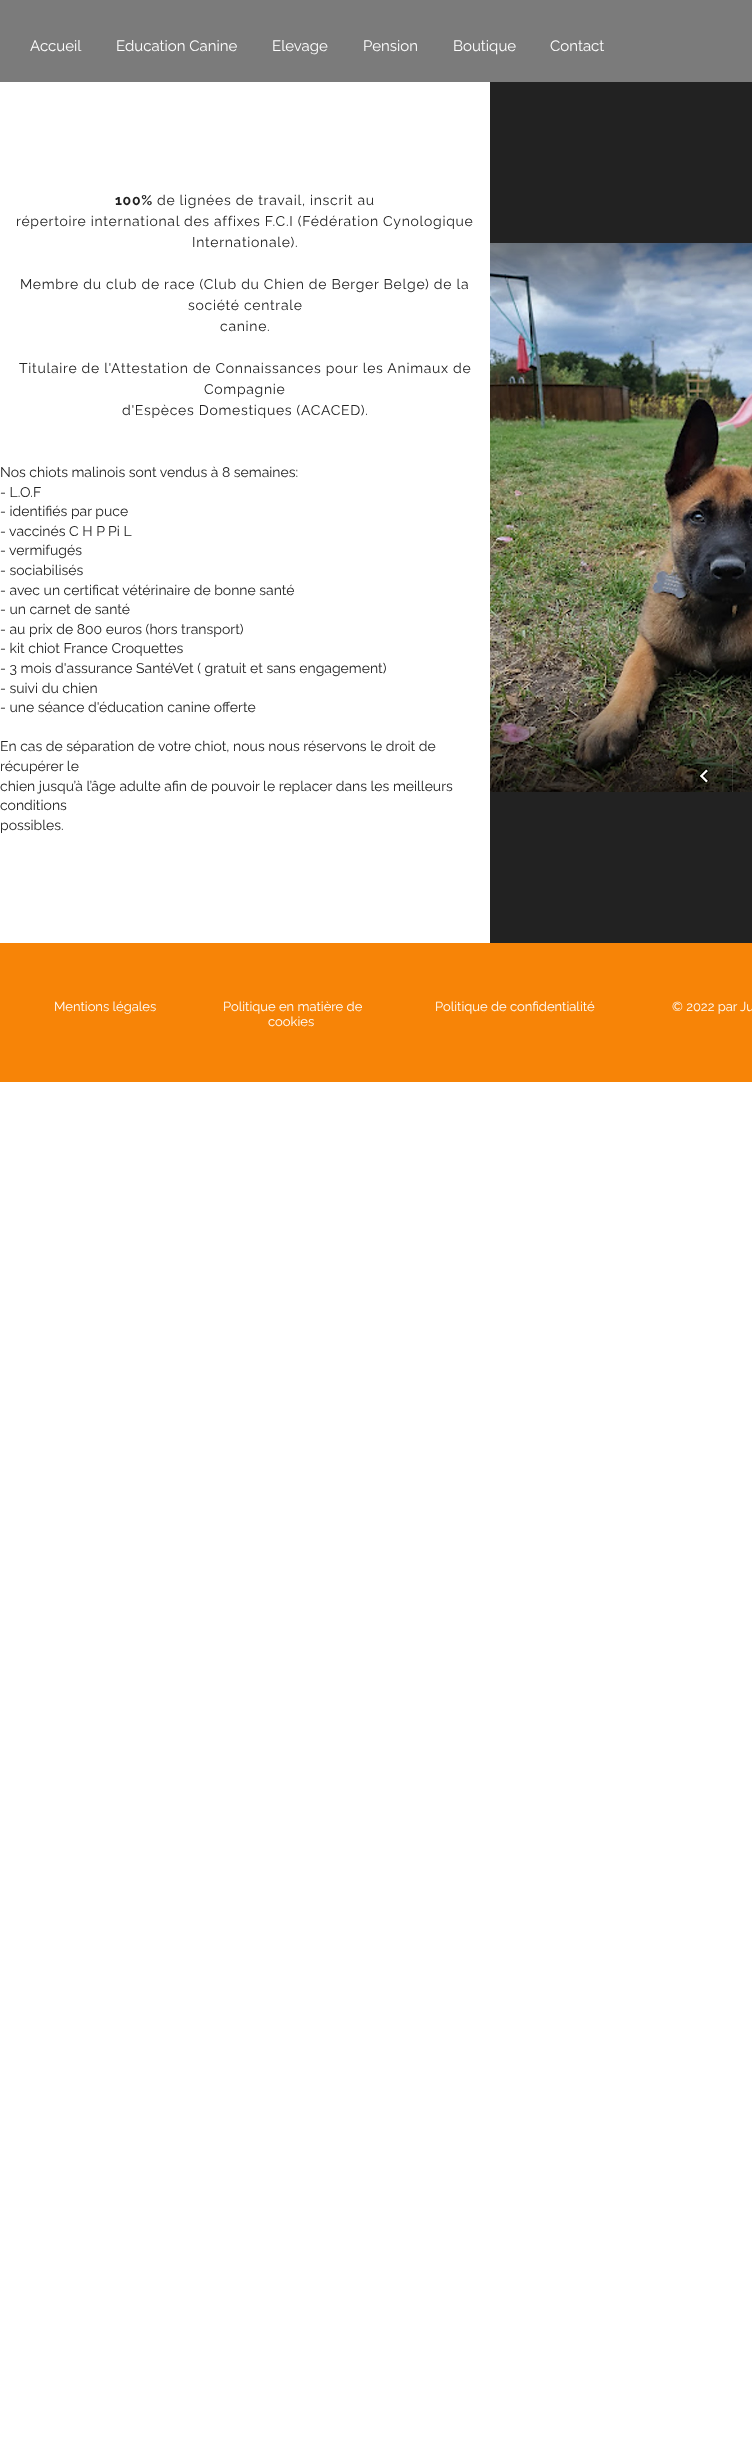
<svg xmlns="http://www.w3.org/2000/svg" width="752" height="2452">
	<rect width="100%" height="100%" fill="#FFFFFF" />
	<rect x="0" y="0" width="752" height="82" fill="#7B7B7B" />
	<g font-family="Raleway" font-size="15" fill="#FFFFFF">
		<text x="30" y="51">Accueil</text>
		<text x="116" y="51">Education Canine</text>
		<text x="272" y="51">Elevage</text>
		<text x="363" y="51">Pension</text>
		<text x="453" y="51">Boutique</text>
		<text x="550" y="51">Contact</text>
	</g>
	<text x="115" y="205" font-family="Raleway" font-size="14" font-weight="700" letter-spacing="0.7" fill="#222222">100%</text>
	<g font-family="Raleway" font-size="14" letter-spacing="0.7" fill="#222222">
		<text x="157" y="205">de lignées de travail, inscrit au</text>
		<text x="16" y="226">répertoire international des affixes F.C.I (Fédération Cynologique</text>
		<text x="192" y="247">Internationale).</text>
		<text x="20" y="289">Membre du club de race (Club du Chien de Berger Belge) de la</text>
		<text x="188" y="310">société centrale</text>
		<text x="220" y="331">canine.</text>
		<text x="19" y="373">Titulaire de l'Attestation de Connaissances pour les Animaux de</text>
		<text x="204" y="394">Compagnie</text>
		<text x="122" y="415">d'Espèces Domestiques (ACACED).</text>
	</g>
	<g font-family="Raleway" font-size="14" fill="#222222">
		<text x="0" y="477">Nos chiots malinois sont vendus à 8 semaines:</text>
		<text x="0" y="497">- L.O.F</text>
		<text x="0" y="516">- identifiés par puce</text>
		<text x="0" y="536">- vaccinés C H P Pi L</text>
		<text x="0" y="555">- vermifugés</text>
		<text x="0" y="575">- sociabilisés</text>
		<text x="0" y="595">- avec un certificat vétérinaire de bonne santé</text>
		<text x="0" y="614">- un carnet de santé</text>
		<text x="0" y="634">- au prix de 800 euros (hors transport)</text>
		<text x="0" y="653">- kit chiot France Croquettes</text>
		<text x="0" y="673">- 3 mois d'assurance SantéVet ( gratuit et sans engagement)</text>
		<text x="0" y="693">- suivi du chien</text>
		<text x="0" y="712">- une séance d'éducation canine offerte</text>
		<text x="0" y="751">En cas de séparation de votre chiot, nous nous réservons le droit de</text>
		<text x="0" y="771">récupérer le</text>
		<text x="0" y="791">chien jusqu’à l’âge adulte afin de pouvoir le replacer dans les meilleurs</text>
		<text x="0" y="810">conditions</text>
		<text x="0" y="830">possibles.</text>
	</g>
	<rect x="490" y="82" width="262" height="861" fill="#222222" />
	<image x="490" y="243" width="262" height="549" href="assets/img1.png" />
	<rect x="0" y="943" width="752" height="139" fill="#F78407" />
	<g font-family="Raleway" font-size="13" fill="#FFFFFF">
		<text x="54" y="1011">Mentions légales</text>
		<text x="223" y="1011">Politique en matière de</text>
		<text x="268" y="1026">cookies</text>
		<text x="435" y="1011">Politique de confidentialité</text>
		<text x="672" y="1011">© 2022 par Ju</text>
	</g>
</svg>
